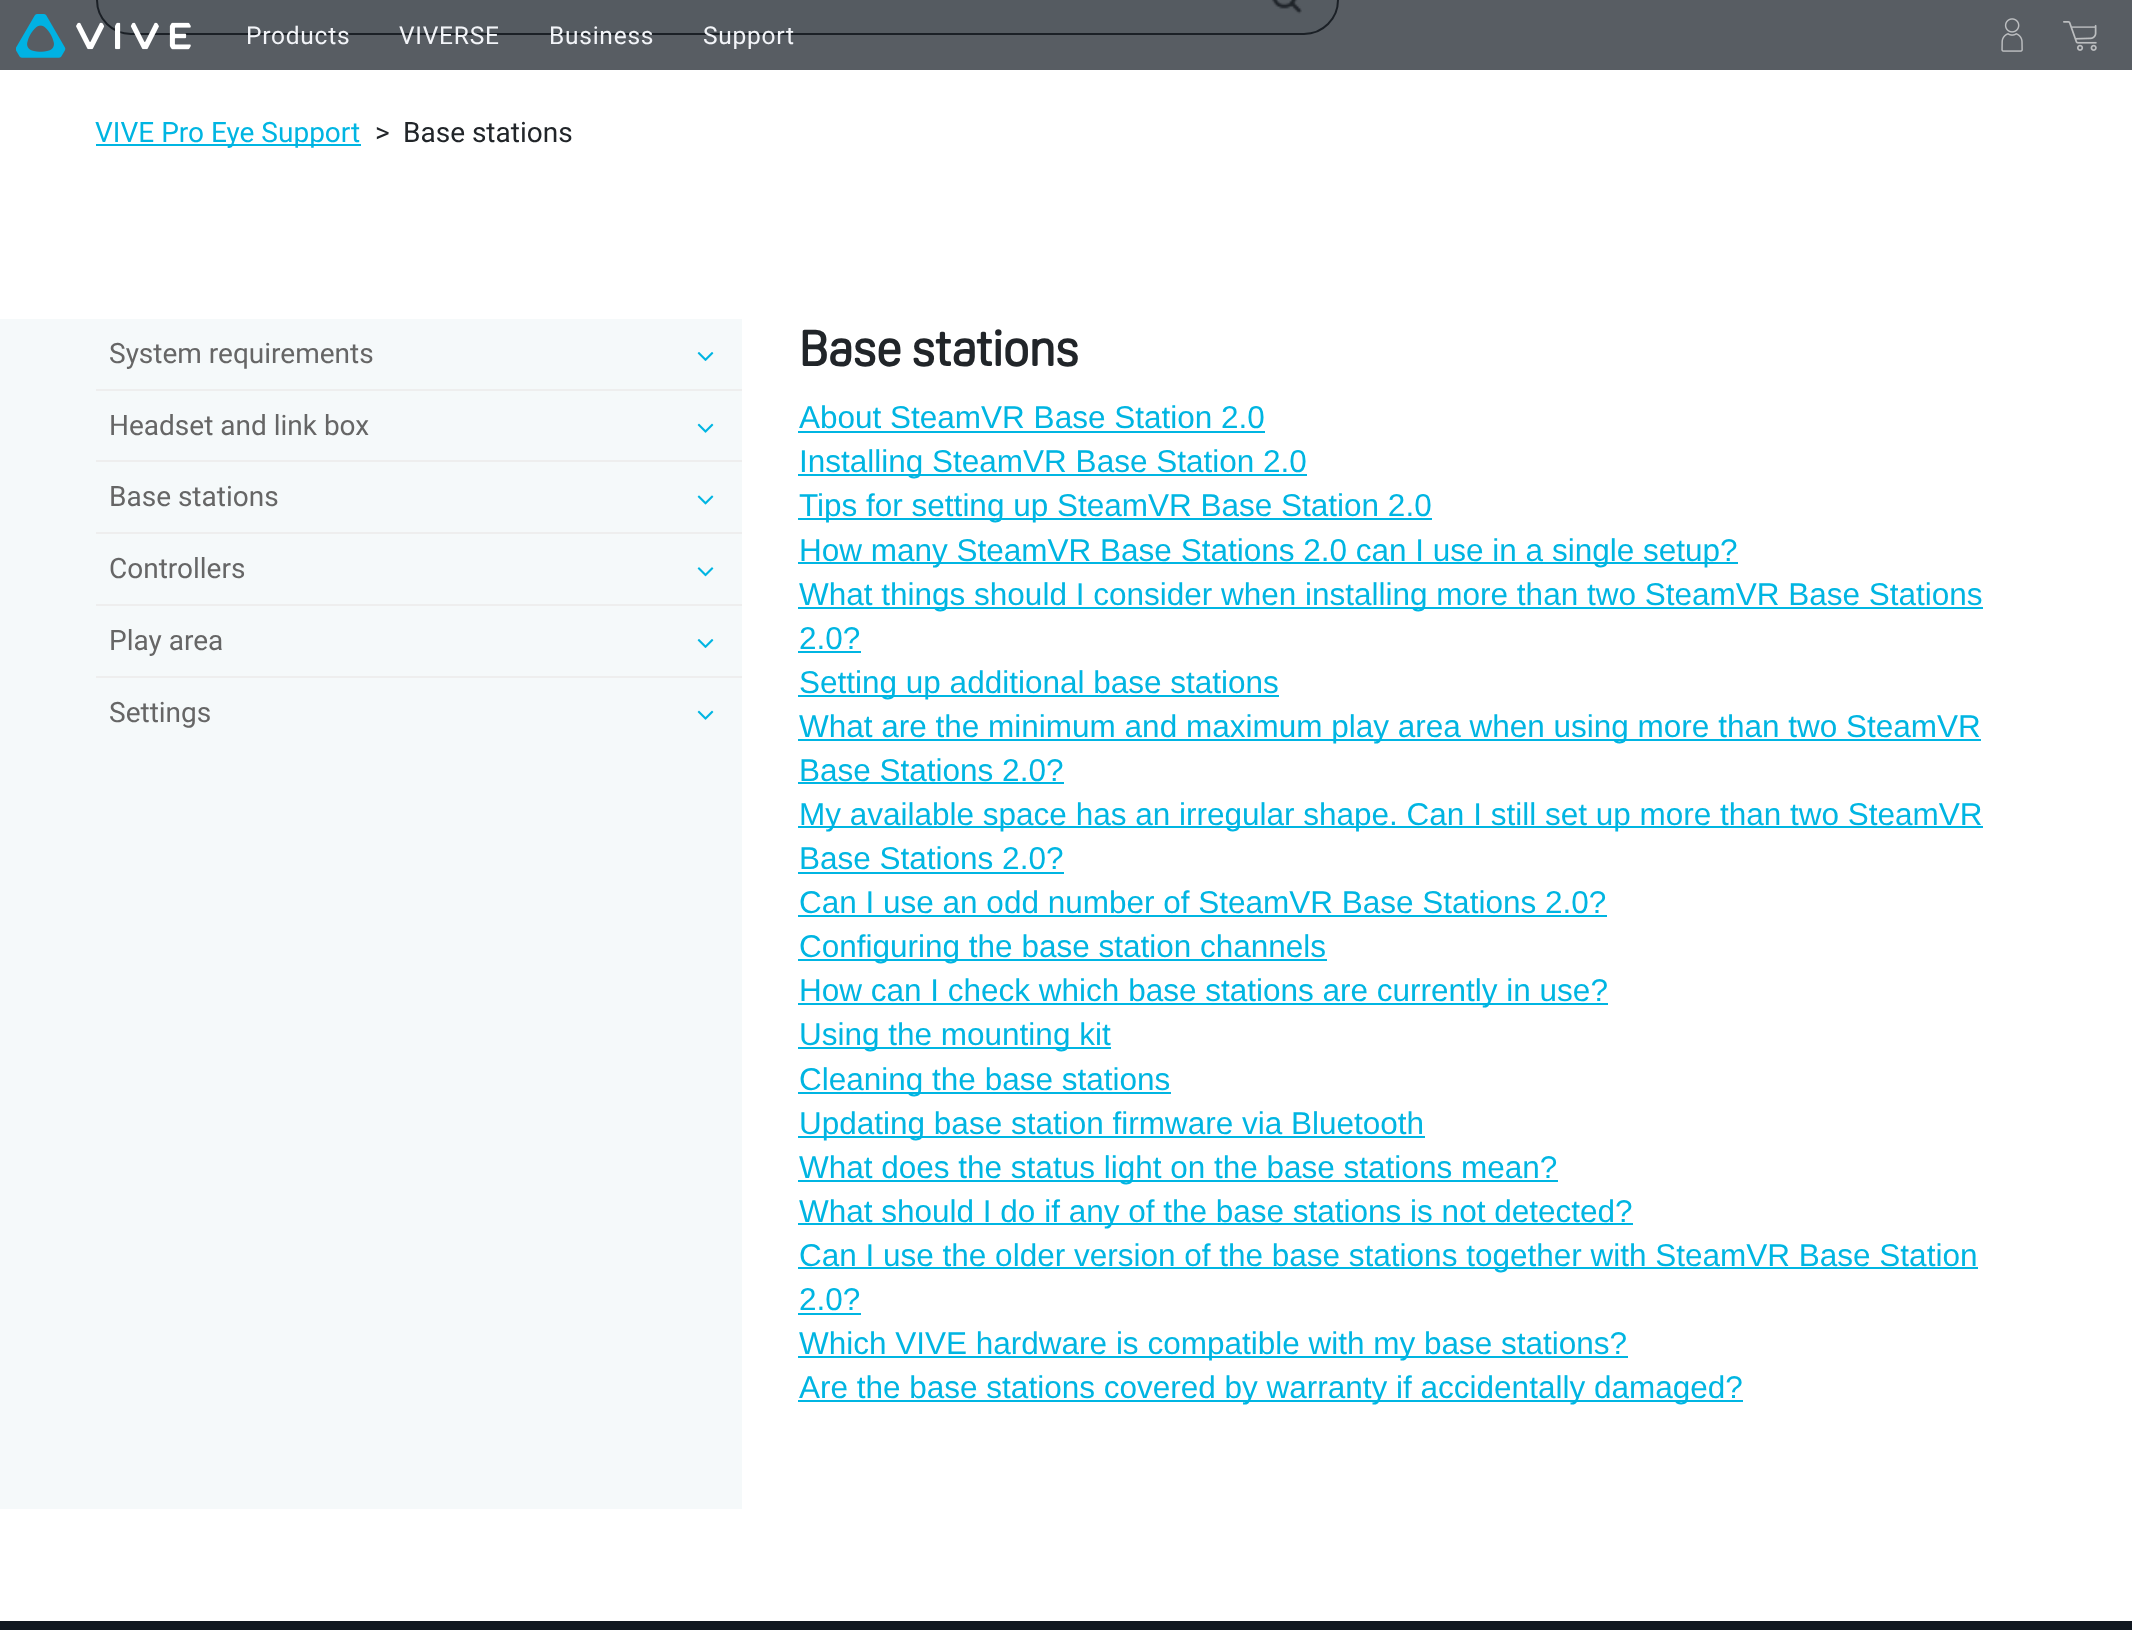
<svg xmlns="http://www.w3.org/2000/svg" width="2132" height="1630">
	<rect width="100%" height="100%" fill="#FFFFFF" />
	<rect x="0" y="0" width="2132" height="70" fill="#585D63" />
	<rect x="97" y="-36" width="1241" height="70" rx="34" fill="#555B61" stroke="#1B2026" stroke-width="2" />
	<image x="16" y="14" width="175" height="44" href="assets/img1.png" />
	<g font-family="Roboto" font-size="24.5" letter-spacing="0.75" fill="#F2F4F8">
		<text x="246" y="44">Products</text>
		<text x="399" y="44">VIVERSE</text>
		<text x="549" y="44">Business</text>
		<text x="703" y="44">Support</text>
	</g>
	<image x="2001" y="18" width="22" height="34" href="assets/img2.png" />
	<image x="2063" y="21" width="34" height="30" href="assets/img3.png" />
	<image x="1271" y="0" width="31" height="14" href="assets/img4.png" />
	<rect x="96" y="144" width="265" height="2" fill="#00B5E2" />
	<text x="95" y="142" font-family="Roboto" font-size="28" fill="#00B5E2">VIVE Pro Eye Support</text>
	<g font-family="Roboto" font-size="28" fill="#212529">
		<text x="375" y="142">&gt;</text>
		<text x="403" y="142">Base stations</text>
	</g>
	<rect x="0" y="319" width="742" height="1190" fill="#F5F9FA" />
	<rect x="96" y="389" width="646" height="2" fill="#EEEEEE" />
	<text x="109" y="363" font-family="Roboto" font-size="28" fill="#666666">System requirements</text>
	<image x="697" y="352" width="17" height="9" href="assets/img5.png" />
	<rect x="96" y="460" width="646" height="2" fill="#EEEEEE" />
	<text x="109" y="435" font-family="Roboto" font-size="28" fill="#666666">Headset and link box</text>
	<image x="697" y="423" width="17" height="10" href="assets/img6.png" />
	<rect x="96" y="532" width="646" height="2" fill="#EEEEEE" />
	<text x="109" y="506" font-family="Roboto" font-size="28" fill="#666666">Base stations</text>
	<image x="697" y="495" width="17" height="10" href="assets/img7.png" />
	<rect x="96" y="604" width="646" height="2" fill="#EEEEEE" />
	<text x="109" y="578" font-family="Roboto" font-size="28" fill="#666666">Controllers</text>
	<image x="697" y="567" width="17" height="10" href="assets/img8.png" />
	<rect x="96" y="676" width="646" height="2" fill="#EEEEEE" />
	<text x="109" y="650" font-family="Roboto" font-size="28" fill="#666666">Play area</text>
	<image x="697" y="639" width="17" height="9" href="assets/img5.png" />
	<text x="109" y="722" font-family="Roboto" font-size="28" fill="#666666">Settings</text>
	<image x="697" y="710" width="17" height="10" href="assets/img6.png" />
	<text x="799" y="366" font-family="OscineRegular" font-size="49" font-weight="700" fill="#212529">Base stations</text>
	<text x="799" y="428" font-family="Liberation Sans" font-size="31.5" fill="#00B5E2">About SteamVR Base Station 2.0</text>
	<rect x="798" y="431" width="467" height="2" fill="#00B5E2" />
	<rect x="798" y="474" width="509" height="2" fill="#00B5E2" />
	<text x="799" y="472" font-family="Liberation Sans" font-size="31.5" fill="#00B5E2">Installing SteamVR Base Station 2.0</text>
	<rect x="798" y="518" width="634" height="2" fill="#00B5E2" />
	<text x="799" y="516" font-family="Liberation Sans" font-size="31.5" fill="#00B5E2">Tips for setting up SteamVR Base Station 2.0</text>
	<rect x="798" y="562" width="940" height="2" fill="#00B5E2" />
	<text x="799" y="561" font-family="Liberation Sans" font-size="31.5" fill="#00B5E2">How many SteamVR Base Stations 2.0 can I use in a single setup?</text>
	<rect x="798" y="607" width="1185" height="2" fill="#00B5E2" />
	<g font-family="Liberation Sans" font-size="31.5" fill="#00B5E2">
		<text x="799" y="605">What things should I consider when installing more than two SteamVR Base Stations</text>
		<text x="799" y="649">2.0?</text>
	</g>
	<rect x="798" y="651" width="63" height="2" fill="#00B5E2" />
	<rect x="798" y="695" width="481" height="2" fill="#00B5E2" />
	<text x="799" y="693" font-family="Liberation Sans" font-size="31.5" fill="#00B5E2">Setting up additional base stations</text>
	<rect x="798" y="739" width="1183" height="2" fill="#00B5E2" />
	<g font-family="Liberation Sans" font-size="31.5" fill="#00B5E2">
		<text x="799" y="737">What are the minimum and maximum play area when using more than two SteamVR</text>
		<text x="799" y="781">Base Stations 2.0?</text>
	</g>
	<rect x="798" y="782" width="266" height="2" fill="#00B5E2" />
	<rect x="798" y="826" width="1185" height="2" fill="#00B5E2" />
	<g font-family="Liberation Sans" font-size="31.5" fill="#00B5E2">
		<text x="799" y="825">My available space has an irregular shape. Can I still set up more than two SteamVR</text>
		<text x="799" y="869">Base Stations 2.0?</text>
	</g>
	<rect x="798" y="872" width="266" height="2" fill="#00B5E2" />
	<text x="799" y="913" font-family="Liberation Sans" font-size="31.5" fill="#00B5E2">Can I use an odd number of SteamVR Base Stations 2.0?</text>
	<rect x="798" y="915" width="809" height="2" fill="#00B5E2" />
	<rect x="798" y="959" width="529" height="2" fill="#00B5E2" />
	<text x="799" y="957" font-family="Liberation Sans" font-size="31.5" fill="#00B5E2">Configuring the base station channels</text>
	<rect x="798" y="1003" width="810" height="2" fill="#00B5E2" />
	<text x="799" y="1001" font-family="Liberation Sans" font-size="31.5" fill="#00B5E2">How can I check which base stations are currently in use?</text>
	<rect x="798" y="1047" width="313" height="2" fill="#00B5E2" />
	<text x="799" y="1045" font-family="Liberation Sans" font-size="31.5" fill="#00B5E2">Using the mounting kit</text>
	<rect x="798" y="1092" width="373" height="2" fill="#00B5E2" />
	<text x="799" y="1090" font-family="Liberation Sans" font-size="31.5" fill="#00B5E2">Cleaning the base stations</text>
	<rect x="798" y="1136" width="627" height="2" fill="#00B5E2" />
	<text x="799" y="1134" font-family="Liberation Sans" font-size="31.5" fill="#00B5E2">Updating base station firmware via Bluetooth</text>
	<rect x="798" y="1180" width="760" height="2" fill="#00B5E2" />
	<text x="799" y="1178" font-family="Liberation Sans" font-size="31.5" fill="#00B5E2">What does the status light on the base stations mean?</text>
	<rect x="798" y="1223" width="835" height="2" fill="#00B5E2" />
	<text x="799" y="1222" font-family="Liberation Sans" font-size="31.5" fill="#00B5E2">What should I do if any of the base stations is not detected?</text>
	<rect x="798" y="1267" width="1180" height="2" fill="#00B5E2" />
	<g font-family="Liberation Sans" font-size="31.5" fill="#00B5E2">
		<text x="799" y="1266">Can I use the older version of the base stations together with SteamVR Base Station</text>
		<text x="799" y="1310">2.0?</text>
	</g>
	<rect x="798" y="1313" width="63" height="2" fill="#00B5E2" />
	<rect x="798" y="1356" width="830" height="2" fill="#00B5E2" />
	<text x="799" y="1354" font-family="Liberation Sans" font-size="31.5" fill="#00B5E2">Which VIVE hardware is compatible with my base stations?</text>
	<rect x="798" y="1400" width="945" height="2" fill="#00B5E2" />
	<text x="799" y="1398" font-family="Liberation Sans" font-size="31.5" fill="#00B5E2">Are the base stations covered by warranty if accidentally damaged?</text>
	<rect x="0" y="1621" width="2132" height="9" fill="#111820" />
</svg>
